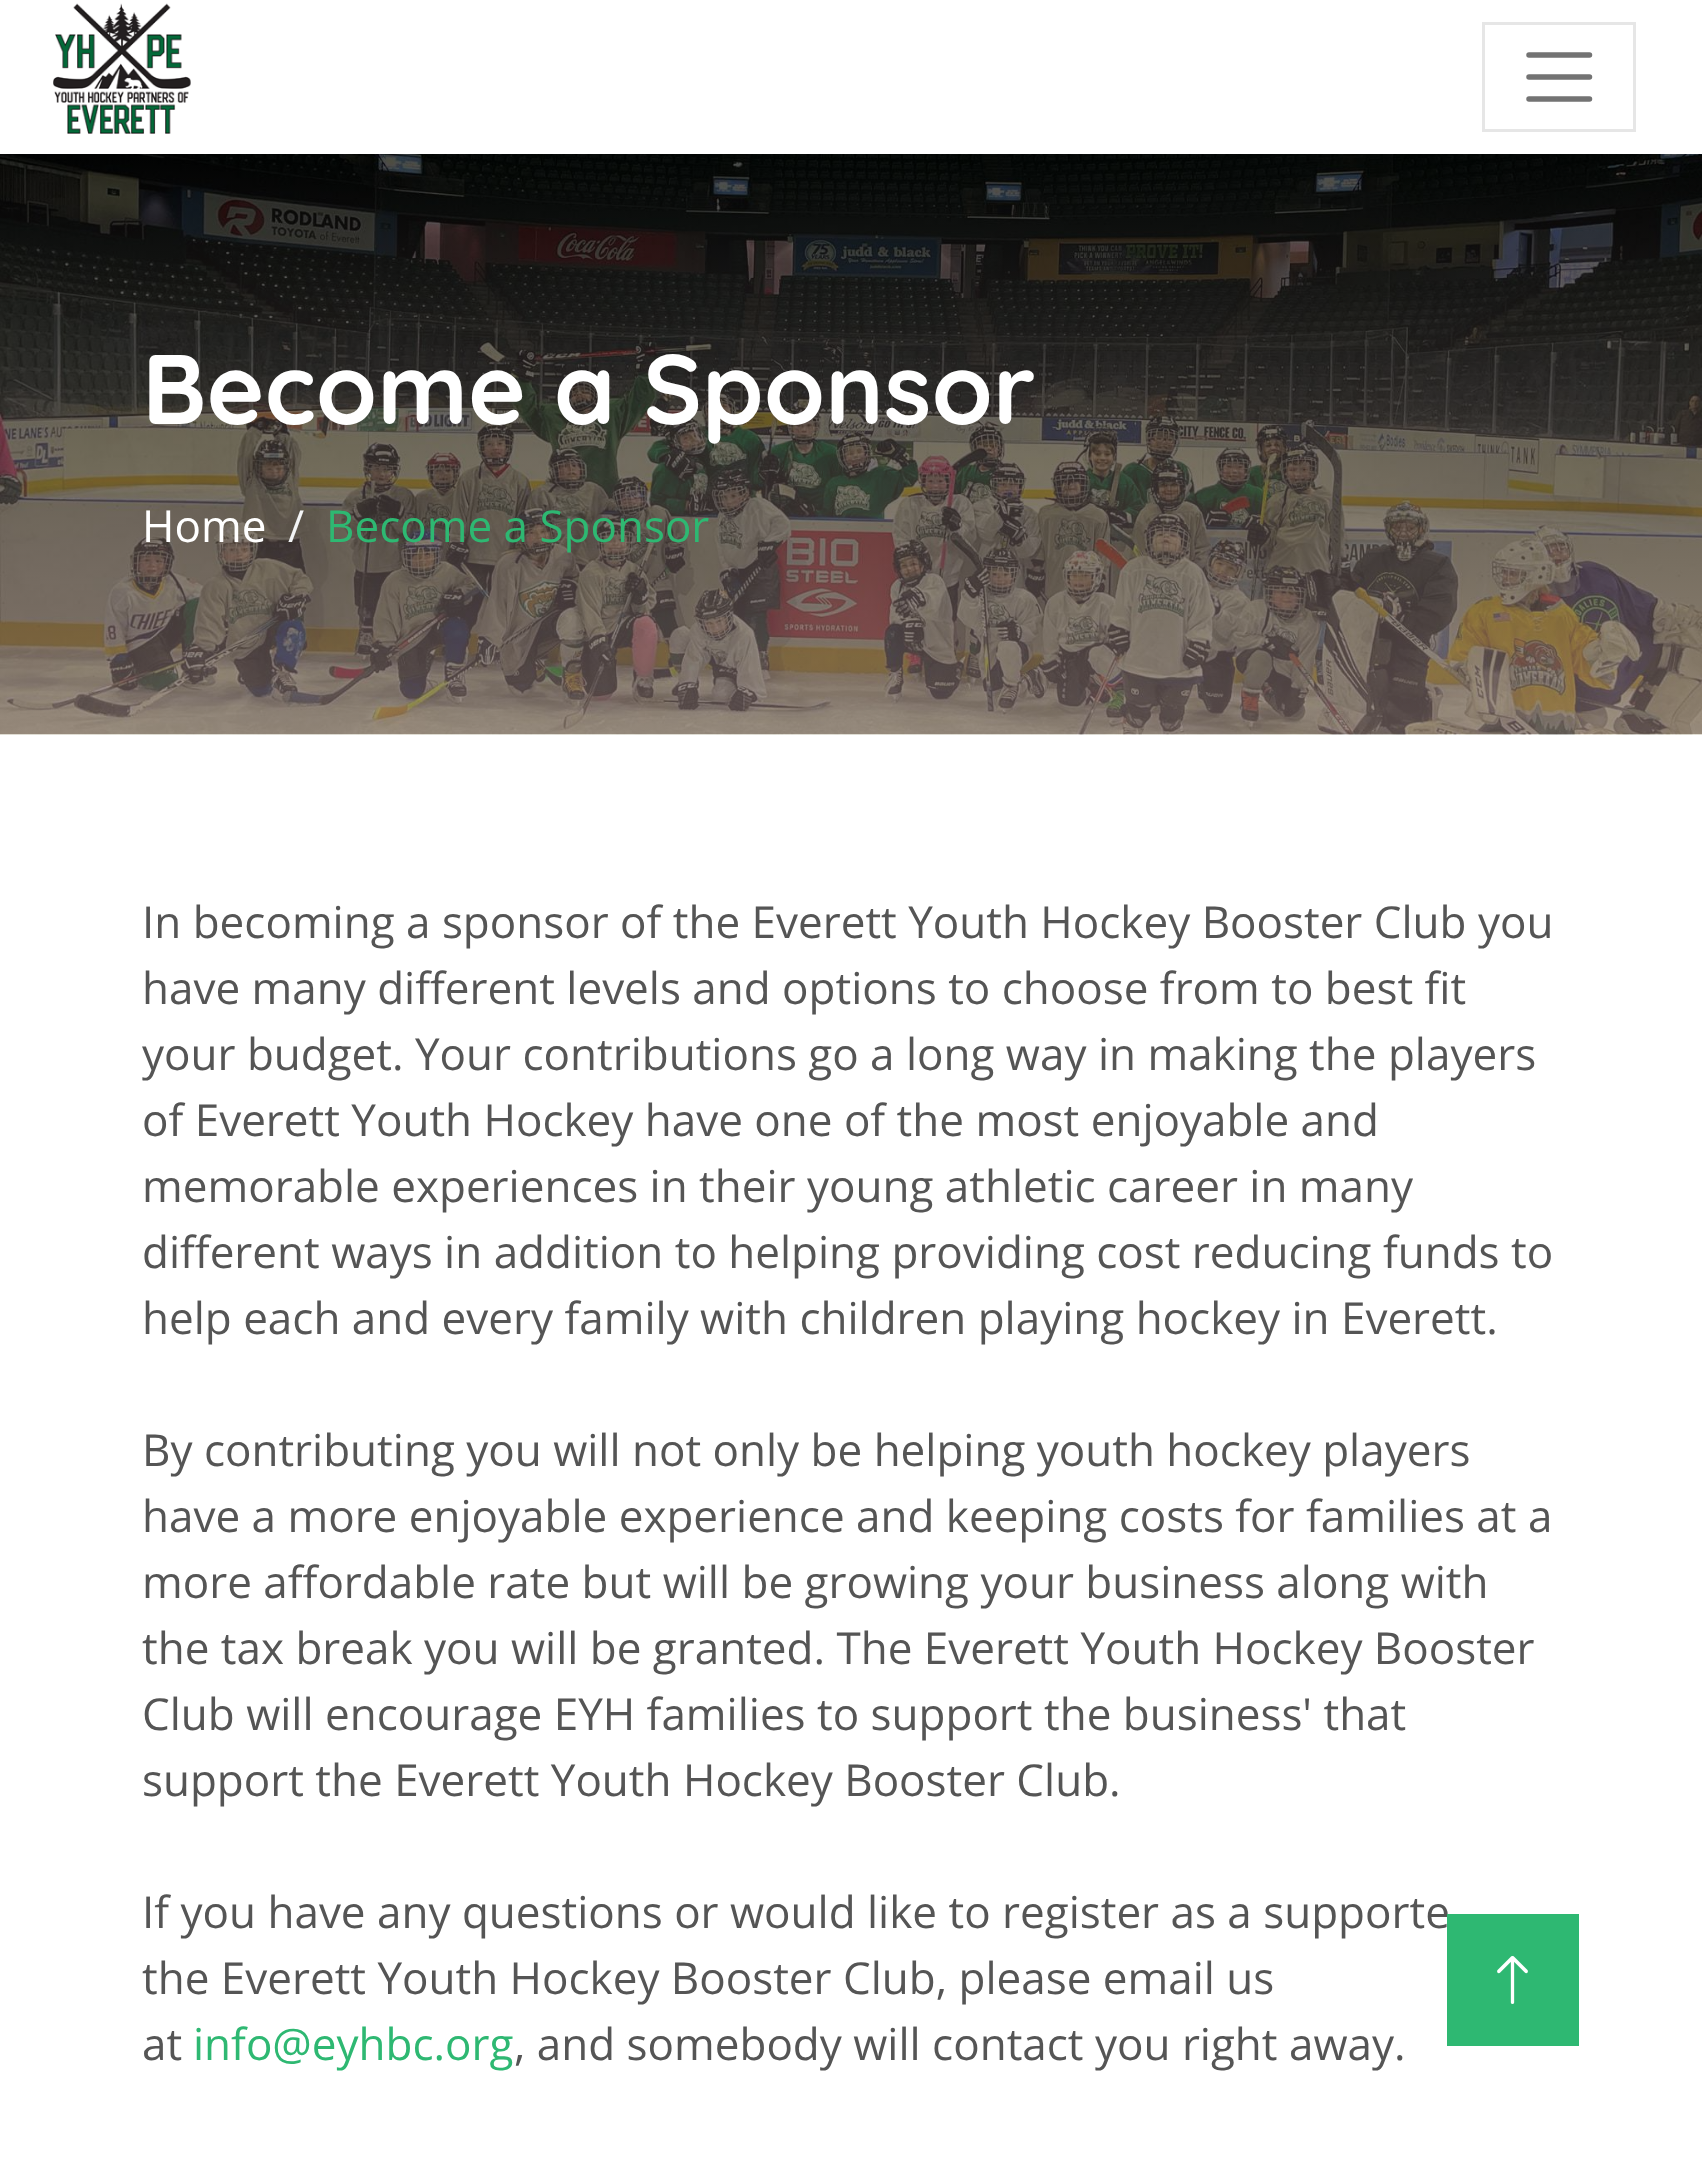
<svg xmlns="http://www.w3.org/2000/svg" width="1702" height="2169">
	<rect width="100%" height="100%" fill="#FFFFFF" />
	<image x="53" y="3" width="138" height="131" href="assets/img1.png" />
	<rect x="1483.5" y="23.5" width="151" height="107" fill="none" stroke="#E6E6E6" stroke-width="3" />
	<path d="M1529 55H1589.5M1529 77H1589.5M1529 99H1589.5" fill="none" stroke="#737373" stroke-width="5.5" stroke-linecap="round" />
	<image x="0" y="154" width="1702" height="581" href="assets/img2.png" />
	<text x="142" y="424" font-family="Quicksand" font-size="98.5" font-weight="700" fill="#FFFFFF">Become a Sponsor</text>
	<text x="142" y="542" font-family="Open Sans" font-size="44" fill="#FFFFFF">Home</text>
	<text x="288" y="542" font-family="Open Sans" font-size="44" fill="#F3F4F5">/</text>
	<text x="326" y="542" font-family="Open Sans" font-size="44" fill="#2EB872">Become a Sponsor</text>
	<g font-family="Open Sans" font-size="44" fill="#555555">
		<text x="142" y="938">In becoming a sponsor of the Everett Youth Hockey Booster Club you</text>
		<text x="142" y="1004">have many different levels and options to choose from to best fit</text>
		<text x="142" y="1070">your budget. Your contributions go a long way in making the players</text>
		<text x="142" y="1136">of Everett Youth Hockey have one of the most enjoyable and</text>
		<text x="142" y="1202">memorable experiences in their young athletic career in many</text>
		<text x="142" y="1268">different ways in addition to helping providing cost reducing funds to</text>
		<text x="142" y="1334">help each and every family with children playing hockey in Everett.</text>
		<text x="142" y="1466">By contributing you will not only be helping youth hockey players</text>
		<text x="142" y="1532">have a more enjoyable experience and keeping costs for families at a</text>
		<text x="142" y="1598">more affordable rate but will be growing your business along with</text>
		<text x="142" y="1664">the tax break you will be granted. The Everett Youth Hockey Booster</text>
		<text x="142" y="1730">Club will encourage EYH families to support the business' that</text>
		<text x="142" y="1796">support the Everett Youth Hockey Booster Club.</text>
		<text x="142" y="1928">If you have any questions or would like to register as a supporte</text>
		<text x="142" y="1994">the Everett Youth Hockey Booster Club, please email us</text>
		<text x="142" y="2060">at</text>
	</g>
	<text x="193" y="2060" font-family="Open Sans" font-size="44" fill="#2EB872">info@eyhbc.org</text>
	<text x="514" y="2060" font-family="Open Sans" font-size="44" fill="#555555">, and somebody will contact you right away.</text>
	<rect x="1447" y="1914" width="132" height="132" fill="#2EB872" />
	<image x="1497" y="1956" width="31" height="48" href="assets/img3.png" />
</svg>
